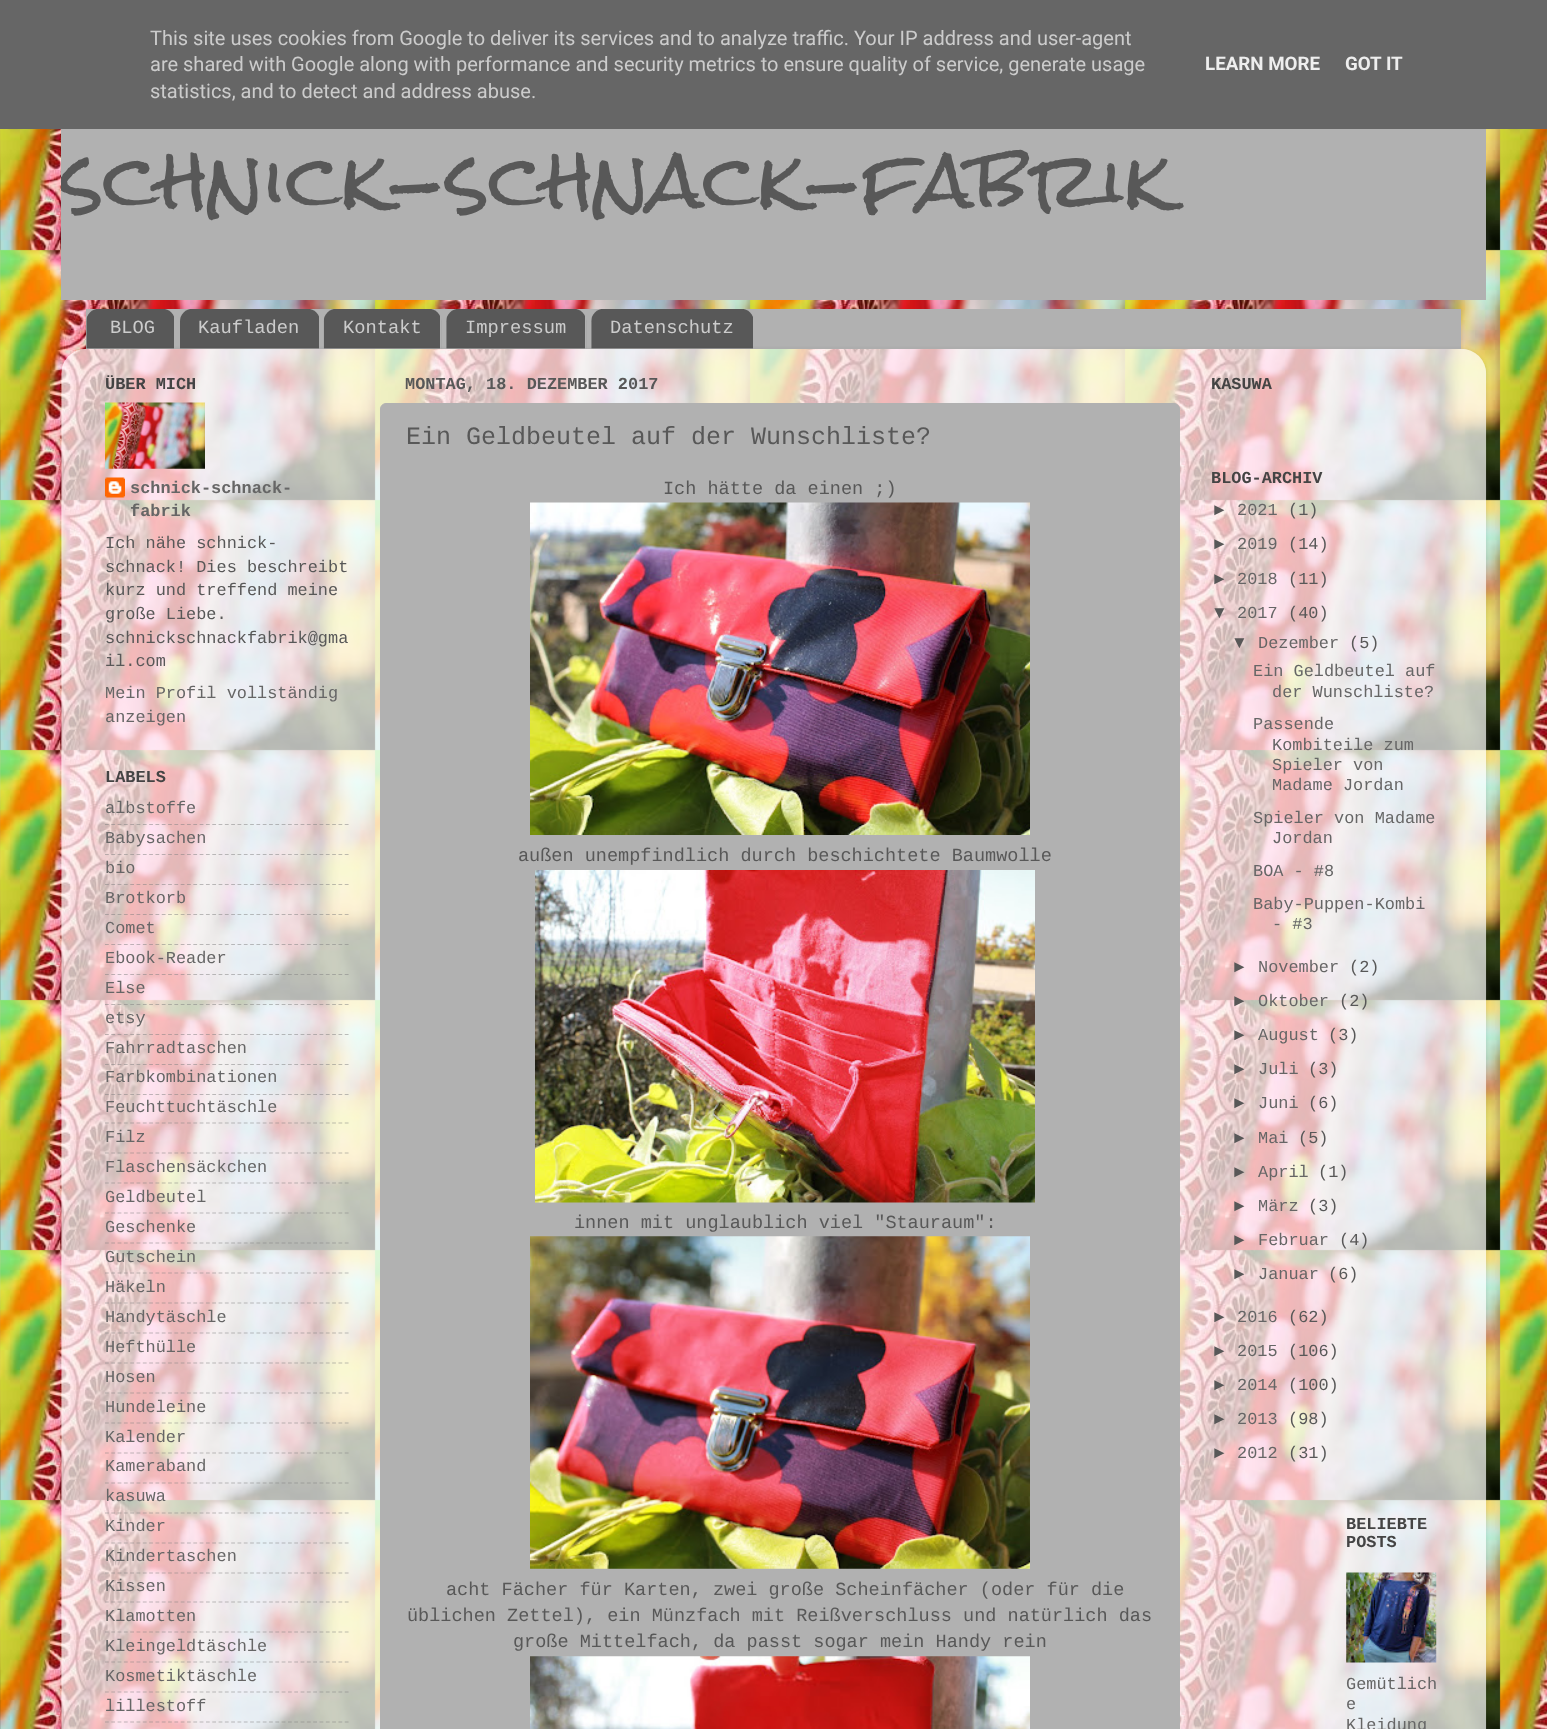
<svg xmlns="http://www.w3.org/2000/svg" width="1547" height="1729">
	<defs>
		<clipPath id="clip1"><rect x="61" y="63" width="1425" height="237" /></clipPath>
		<clipPath id="clip2"><path d="M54 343H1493V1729H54ZM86 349H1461C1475 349 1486 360 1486 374V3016H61V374C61 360 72 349 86 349Z" clip-rule="evenodd" /></clipPath>
	</defs>
	<rect width="100%" height="100%" fill="#FFFFFF" />
	<image x="0" y="129" width="1547" height="1600" href="assets/img1.png" />
	<rect x="0" y="0" width="1547" height="129" fill="#666666" />
	<g font-family="Roboto" font-size="20" fill="#CCCCCC">
		<text x="150" y="45">This site uses cookies from Google to deliver its services and to analyze traffic. Your IP address and user-agent</text>
		<text x="150" y="71">are shared with Google along with performance and security metrics to ensure quality of service, generate usage</text>
		<text x="150" y="98">statistics, and to detect and address abuse.</text>
	</g>
	<g font-family="Roboto" font-size="18.75" font-weight="700" fill="#EEEEEE">
		<text x="1205" y="70">LEARN MORE</text>
		<text x="1345" y="70">GOT IT</text>
	</g>
	<rect x="61" y="129" width="1425" height="171" fill="#B1B1B1" />
	<g clip-path="url(#clip1)">
		<text x="61" y="210" font-family="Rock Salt" font-size="75" fill="#585858">schnick-schnack-fabrik</text>
	</g>
	<rect x="86" y="309" width="1375" height="40" fill="#B1B1B1" />
	<image x="86" y="309" width="88" height="40" href="assets/img2.png" />
	<text x="110" y="333" font-family="Liberation Mono" font-size="18.75" fill="#CCCCCC">BLOG</text>
	<image x="180" y="309" width="139" height="40" href="assets/img3.png" />
	<text x="198" y="333" font-family="Liberation Mono" font-size="18.75" fill="#CCCCCC">Kaufladen</text>
	<image x="323" y="309" width="119" height="40" href="assets/img4.png" />
	<rect x="440" y="315" width="1" height="34" fill="#B1B1B1" />
	<text x="343" y="333" font-family="Liberation Mono" font-size="18.75" fill="#CCCCCC">Kontakt</text>
	<image x="446" y="309" width="141" height="40" href="assets/img5.png" />
	<rect x="585" y="315" width="1" height="34" fill="#B1B1B1" />
	<text x="465" y="333" font-family="Liberation Mono" font-size="18.75" fill="#CCCCCC">Impressum</text>
	<image x="591" y="309" width="162" height="40" href="assets/img6.png" />
	<text x="610" y="333" font-family="Liberation Mono" font-size="18.75" fill="#CCCCCC">Datenschutz</text>
	<g clip-path="url(#clip2)">
		<rect x="61" y="350" width="1425" height="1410" rx="25" fill="#000000" fill-opacity="0.15" filter="blur(2px)" />
	</g>
	<image x="61" y="348" width="1426" height="1381" href="assets/img7.png" />
	<text x="105" y="389" font-family="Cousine" font-size="16.9" font-weight="700" fill="#444444">ÜBER MICH</text>
	<image x="105" y="402" width="100" height="67" href="assets/img8.png" />
	<image x="105" y="477" width="20" height="21" href="assets/img9.png" />
	<g font-family="Cousine" font-size="16.9" font-weight="700" fill="#666666">
		<text x="130" y="493">schnick-schnack-</text>
		<text x="130" y="516">fabrik</text>
	</g>
	<g font-family="Cousine" font-size="16.9" fill="#585858">
		<text x="105" y="548">Ich nähe schnick-</text>
		<text x="105" y="572">schnack! Dies beschreibt</text>
		<text x="105" y="595">kurz und treffend meine</text>
		<text x="105" y="619">große Liebe.</text>
		<text x="105" y="643">schnickschnackfabrik@gma</text>
		<text x="105" y="666">il.com</text>
	</g>
	<g font-family="Cousine" font-size="16.9" fill="#666666">
		<text x="105" y="698">Mein Profil vollständig</text>
		<text x="105" y="722">anzeigen</text>
	</g>
	<text x="105" y="782" font-family="Cousine" font-size="16.9" font-weight="700" fill="#444444">LABELS</text>
	<text x="105" y="813" font-family="Cousine" font-size="16.9" fill="#666666">albstoffe</text>
	<path d="M105 824.5H349" fill="none" stroke="#808080" stroke-opacity="0.5" stroke-width="1.2" stroke-dasharray="3.75 2.56" />
	<text x="105" y="843" font-family="Cousine" font-size="16.9" fill="#666666">Babysachen</text>
	<path d="M105 854.5H349" fill="none" stroke="#808080" stroke-opacity="0.5" stroke-width="1.2" stroke-dasharray="3.75 2.56" />
	<text x="105" y="873" font-family="Cousine" font-size="16.9" fill="#666666">bio</text>
	<path d="M105 884.5H349" fill="none" stroke="#808080" stroke-opacity="0.5" stroke-width="1.2" stroke-dasharray="3.75 2.56" />
	<text x="105" y="903" font-family="Cousine" font-size="16.9" fill="#666666">Brotkorb</text>
	<path d="M105 914.5H349" fill="none" stroke="#808080" stroke-opacity="0.5" stroke-width="1.2" stroke-dasharray="3.75 2.56" />
	<text x="105" y="933" font-family="Cousine" font-size="16.9" fill="#666666">Comet</text>
	<path d="M105 944.5H349" fill="none" stroke="#808080" stroke-opacity="0.5" stroke-width="1.2" stroke-dasharray="3.75 2.56" />
	<text x="105" y="963" font-family="Cousine" font-size="16.9" fill="#666666">Ebook-Reader</text>
	<path d="M105 974.5H349" fill="none" stroke="#808080" stroke-opacity="0.5" stroke-width="1.2" stroke-dasharray="3.75 2.56" />
	<text x="105" y="993" font-family="Cousine" font-size="16.9" fill="#666666">Else</text>
	<path d="M105 1004.5H349" fill="none" stroke="#808080" stroke-opacity="0.5" stroke-width="1.2" stroke-dasharray="3.75 2.56" />
	<text x="105" y="1023" font-family="Cousine" font-size="16.9" fill="#666666">etsy</text>
	<path d="M105 1034.5H349" fill="none" stroke="#808080" stroke-opacity="0.5" stroke-width="1.2" stroke-dasharray="3.75 2.56" />
	<text x="105" y="1053" font-family="Cousine" font-size="16.9" fill="#666666">Fahrradtaschen</text>
	<path d="M105 1064.5H349" fill="none" stroke="#808080" stroke-opacity="0.5" stroke-width="1.2" stroke-dasharray="3.75 2.56" />
	<text x="105" y="1082" font-family="Cousine" font-size="16.9" fill="#666666">Farbkombinationen</text>
	<path d="M105 1094.5H349" fill="none" stroke="#808080" stroke-opacity="0.5" stroke-width="1.2" stroke-dasharray="3.75 2.56" />
	<text x="105" y="1112" font-family="Cousine" font-size="16.9" fill="#666666">Feuchttuchtäschle</text>
	<path d="M105 1123H349" fill="none" stroke="#808080" stroke-opacity="0.5" stroke-width="1.2" stroke-dasharray="3.75 2.56" />
	<text x="105" y="1142" font-family="Cousine" font-size="16.9" fill="#666666">Filz</text>
	<path d="M105 1153H349" fill="none" stroke="#808080" stroke-opacity="0.5" stroke-width="1.2" stroke-dasharray="3.75 2.56" />
	<text x="105" y="1172" font-family="Cousine" font-size="16.9" fill="#666666">Flaschensäckchen</text>
	<path d="M105 1183H349" fill="none" stroke="#808080" stroke-opacity="0.5" stroke-width="1.2" stroke-dasharray="3.75 2.56" />
	<text x="105" y="1202" font-family="Cousine" font-size="16.9" fill="#666666">Geldbeutel</text>
	<path d="M105 1213H349" fill="none" stroke="#808080" stroke-opacity="0.5" stroke-width="1.2" stroke-dasharray="3.75 2.56" />
	<text x="105" y="1232" font-family="Cousine" font-size="16.9" fill="#666666">Geschenke</text>
	<path d="M105 1243H349" fill="none" stroke="#808080" stroke-opacity="0.5" stroke-width="1.2" stroke-dasharray="3.75 2.56" />
	<text x="105" y="1262" font-family="Cousine" font-size="16.9" fill="#666666">Gutschein</text>
	<path d="M105 1273H349" fill="none" stroke="#808080" stroke-opacity="0.5" stroke-width="1.2" stroke-dasharray="3.75 2.56" />
	<text x="105" y="1292" font-family="Cousine" font-size="16.9" fill="#666666">Häkeln</text>
	<path d="M105 1303H349" fill="none" stroke="#808080" stroke-opacity="0.5" stroke-width="1.2" stroke-dasharray="3.75 2.56" />
	<text x="105" y="1322" font-family="Cousine" font-size="16.9" fill="#666666">Handytäschle</text>
	<path d="M105 1333H349" fill="none" stroke="#808080" stroke-opacity="0.5" stroke-width="1.2" stroke-dasharray="3.75 2.56" />
	<text x="105" y="1352" font-family="Cousine" font-size="16.9" fill="#666666">Hefthülle</text>
	<path d="M105 1363H349" fill="none" stroke="#808080" stroke-opacity="0.5" stroke-width="1.2" stroke-dasharray="3.75 2.56" />
	<text x="105" y="1382" font-family="Cousine" font-size="16.9" fill="#666666">Hosen</text>
	<path d="M105 1393H349" fill="none" stroke="#808080" stroke-opacity="0.5" stroke-width="1.2" stroke-dasharray="3.75 2.56" />
	<text x="105" y="1412" font-family="Cousine" font-size="16.9" fill="#666666">Hundeleine</text>
	<path d="M105 1423H349" fill="none" stroke="#808080" stroke-opacity="0.5" stroke-width="1.2" stroke-dasharray="3.75 2.56" />
	<text x="105" y="1442" font-family="Cousine" font-size="16.9" fill="#666666">Kalender</text>
	<path d="M105 1453H349" fill="none" stroke="#808080" stroke-opacity="0.5" stroke-width="1.2" stroke-dasharray="3.75 2.56" />
	<text x="105" y="1471" font-family="Cousine" font-size="16.9" fill="#666666">Kameraband</text>
	<path d="M105 1483H349" fill="none" stroke="#808080" stroke-opacity="0.5" stroke-width="1.2" stroke-dasharray="3.75 2.56" />
	<text x="105" y="1501" font-family="Cousine" font-size="16.9" fill="#666666">kasuwa</text>
	<path d="M105 1513H349" fill="none" stroke="#808080" stroke-opacity="0.5" stroke-width="1.2" stroke-dasharray="3.75 2.56" />
	<text x="105" y="1531" font-family="Cousine" font-size="16.9" fill="#666666">Kinder</text>
	<path d="M105 1543H349" fill="none" stroke="#808080" stroke-opacity="0.5" stroke-width="1.2" stroke-dasharray="3.75 2.56" />
	<text x="105" y="1561" font-family="Cousine" font-size="16.9" fill="#666666">Kindertaschen</text>
	<path d="M105 1573H349" fill="none" stroke="#808080" stroke-opacity="0.5" stroke-width="1.2" stroke-dasharray="3.75 2.56" />
	<text x="105" y="1591" font-family="Cousine" font-size="16.9" fill="#666666">Kissen</text>
	<path d="M105 1602H349" fill="none" stroke="#808080" stroke-opacity="0.5" stroke-width="1.2" stroke-dasharray="3.75 2.56" />
	<text x="105" y="1621" font-family="Cousine" font-size="16.9" fill="#666666">Klamotten</text>
	<path d="M105 1632H349" fill="none" stroke="#808080" stroke-opacity="0.5" stroke-width="1.2" stroke-dasharray="3.75 2.56" />
	<text x="105" y="1651" font-family="Cousine" font-size="16.9" fill="#666666">Kleingeldtäschle</text>
	<path d="M105 1662H349" fill="none" stroke="#808080" stroke-opacity="0.5" stroke-width="1.2" stroke-dasharray="3.75 2.56" />
	<text x="105" y="1681" font-family="Cousine" font-size="16.9" fill="#666666">Kosmetiktäschle</text>
	<path d="M105 1692H349" fill="none" stroke="#808080" stroke-opacity="0.5" stroke-width="1.2" stroke-dasharray="3.75 2.56" />
	<text x="105" y="1711" font-family="Cousine" font-size="16.9" fill="#666666">lillestoff</text>
	<path d="M105 1722H349" fill="none" stroke="#808080" stroke-opacity="0.5" stroke-width="1.2" stroke-dasharray="3.75 2.56" />
	<text x="405" y="389" font-family="Cousine" font-size="16.9" font-weight="700" fill="#585858">MONTAG, 18. DEZEMBER 2017</text>
	<rect x="380.5" y="403.5" width="799" height="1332" rx="5.5" fill="#B1B1B1" stroke="#B1B1B1" />
	<text x="406" y="444" font-family="Cousine" font-size="25" fill="#585858">Ein Geldbeutel auf der Wunschliste?</text>
	<text x="663" y="494" font-family="Cousine" font-size="18.55" fill="#585858">Ich hätte da einen ;)</text>
	<image x="530" y="502" width="500" height="333" href="assets/img10.png" />
	<text x="518" y="861" font-family="Cousine" font-size="18.55" fill="#585858">außen unempfindlich durch beschichtete Baumwolle</text>
	<image x="535" y="870" width="500" height="333" href="assets/img11.png" />
	<text x="574" y="1228" font-family="Cousine" font-size="18.55" fill="#585858">innen mit unglaublich viel "Stauraum":</text>
	<image x="530" y="1236" width="500" height="333" href="assets/img12.png" />
	<g font-family="Cousine" font-size="18.55" fill="#585858">
		<text x="446" y="1595">acht Fächer für Karten, zwei große Scheinfächer (oder für die</text>
		<text x="407" y="1621">üblichen Zettel), ein Münzfach mit Reißverschluss und natürlich das</text>
		<text x="513" y="1647">große Mittelfach, da passt sogar mein Handy rein</text>
	</g>
	<image x="530" y="1656" width="500" height="73" href="assets/img13.png" />
	<g font-family="Cousine" font-size="16.9" font-weight="700" fill="#444444">
		<text x="1211" y="389">KASUWA</text>
		<text x="1211" y="483">BLOG-ARCHIV</text>
	</g>
	<text x="1211" y="515" font-family="Liberation Sans" font-size="16.9" fill="#585858">►</text>
	<text x="1237" y="515" font-family="Cousine" font-size="16.9" fill="#666666">2021</text>
	<text x="1288" y="515" font-family="Cousine" font-size="16.9" fill="#585858">(1)</text>
	<text x="1211" y="549" font-family="Liberation Sans" font-size="16.9" fill="#585858">►</text>
	<text x="1237" y="549" font-family="Cousine" font-size="16.9" fill="#666666">2019</text>
	<text x="1288" y="549" font-family="Cousine" font-size="16.9" fill="#585858">(14)</text>
	<text x="1211" y="584" font-family="Liberation Sans" font-size="16.9" fill="#585858">►</text>
	<text x="1237" y="584" font-family="Cousine" font-size="16.9" fill="#666666">2018</text>
	<text x="1288" y="584" font-family="Cousine" font-size="16.9" fill="#585858">(11)</text>
	<text x="1211" y="618" font-family="Liberation Sans" font-size="16.9" fill="#585858">▼</text>
	<text x="1237" y="618" font-family="Cousine" font-size="16.9" fill="#666666">2017</text>
	<text x="1288" y="618" font-family="Cousine" font-size="16.9" fill="#585858">(40)</text>
	<text x="1231" y="648" font-family="Liberation Sans" font-size="16.9" fill="#585858">▼</text>
	<text x="1258" y="648" font-family="Cousine" font-size="16.9" fill="#666666">Dezember</text>
	<text x="1349" y="648" font-family="Cousine" font-size="16.9" fill="#585858">(5)</text>
	<g font-family="Cousine" font-size="16.9" fill="#666666">
		<text x="1253" y="676">Ein Geldbeutel auf</text>
		<text x="1272" y="697">der Wunschliste?</text>
		<text x="1253" y="729">Passende</text>
		<text x="1272" y="750">Kombiteile zum</text>
		<text x="1272" y="770">Spieler von</text>
		<text x="1272" y="790">Madame Jordan</text>
		<text x="1253" y="823">Spieler von Madame</text>
		<text x="1272" y="843">Jordan</text>
		<text x="1253" y="876">BOA - #8</text>
		<text x="1253" y="909">Baby-Puppen-Kombi</text>
		<text x="1272" y="929">- #3</text>
	</g>
	<text x="1231" y="972" font-family="Liberation Sans" font-size="16.9" fill="#585858">►</text>
	<text x="1258" y="972" font-family="Cousine" font-size="16.9" fill="#666666">November</text>
	<text x="1349" y="972" font-family="Cousine" font-size="16.9" fill="#585858">(2)</text>
	<text x="1231" y="1006" font-family="Liberation Sans" font-size="16.9" fill="#585858">►</text>
	<text x="1258" y="1006" font-family="Cousine" font-size="16.9" fill="#666666">Oktober</text>
	<text x="1339" y="1006" font-family="Cousine" font-size="16.9" fill="#585858">(2)</text>
	<text x="1231" y="1040" font-family="Liberation Sans" font-size="16.9" fill="#585858">►</text>
	<text x="1258" y="1040" font-family="Cousine" font-size="16.9" fill="#666666">August</text>
	<text x="1328" y="1040" font-family="Cousine" font-size="16.9" fill="#585858">(3)</text>
	<text x="1231" y="1074" font-family="Liberation Sans" font-size="16.9" fill="#585858">►</text>
	<text x="1258" y="1074" font-family="Cousine" font-size="16.9" fill="#666666">Juli</text>
	<text x="1308" y="1074" font-family="Cousine" font-size="16.9" fill="#585858">(3)</text>
	<text x="1231" y="1108" font-family="Liberation Sans" font-size="16.9" fill="#585858">►</text>
	<text x="1258" y="1108" font-family="Cousine" font-size="16.9" fill="#666666">Juni</text>
	<text x="1308" y="1108" font-family="Cousine" font-size="16.9" fill="#585858">(6)</text>
	<text x="1231" y="1143" font-family="Liberation Sans" font-size="16.9" fill="#585858">►</text>
	<text x="1258" y="1143" font-family="Cousine" font-size="16.9" fill="#666666">Mai</text>
	<text x="1298" y="1143" font-family="Cousine" font-size="16.9" fill="#585858">(5)</text>
	<text x="1231" y="1177" font-family="Liberation Sans" font-size="16.9" fill="#585858">►</text>
	<text x="1258" y="1177" font-family="Cousine" font-size="16.9" fill="#666666">April</text>
	<text x="1318" y="1177" font-family="Cousine" font-size="16.9" fill="#585858">(1)</text>
	<text x="1231" y="1211" font-family="Liberation Sans" font-size="16.9" fill="#585858">►</text>
	<text x="1258" y="1211" font-family="Cousine" font-size="16.9" fill="#666666">März</text>
	<text x="1308" y="1211" font-family="Cousine" font-size="16.9" fill="#585858">(3)</text>
	<text x="1231" y="1245" font-family="Liberation Sans" font-size="16.9" fill="#585858">►</text>
	<text x="1258" y="1245" font-family="Cousine" font-size="16.9" fill="#666666">Februar</text>
	<text x="1339" y="1245" font-family="Cousine" font-size="16.9" fill="#585858">(4)</text>
	<text x="1231" y="1279" font-family="Liberation Sans" font-size="16.9" fill="#585858">►</text>
	<text x="1258" y="1279" font-family="Cousine" font-size="16.9" fill="#666666">Januar</text>
	<text x="1328" y="1279" font-family="Cousine" font-size="16.9" fill="#585858">(6)</text>
	<text x="1211" y="1322" font-family="Liberation Sans" font-size="16.9" fill="#585858">►</text>
	<text x="1237" y="1322" font-family="Cousine" font-size="16.9" fill="#666666">2016</text>
	<text x="1288" y="1322" font-family="Cousine" font-size="16.9" fill="#585858">(62)</text>
	<text x="1211" y="1356" font-family="Liberation Sans" font-size="16.9" fill="#585858">►</text>
	<text x="1237" y="1356" font-family="Cousine" font-size="16.9" fill="#666666">2015</text>
	<text x="1288" y="1356" font-family="Cousine" font-size="16.9" fill="#585858">(106)</text>
	<text x="1211" y="1390" font-family="Liberation Sans" font-size="16.9" fill="#585858">►</text>
	<text x="1237" y="1390" font-family="Cousine" font-size="16.9" fill="#666666">2014</text>
	<text x="1288" y="1390" font-family="Cousine" font-size="16.9" fill="#585858">(100)</text>
	<text x="1211" y="1424" font-family="Liberation Sans" font-size="16.9" fill="#585858">►</text>
	<text x="1237" y="1424" font-family="Cousine" font-size="16.9" fill="#666666">2013</text>
	<text x="1288" y="1424" font-family="Cousine" font-size="16.9" fill="#585858">(98)</text>
	<text x="1211" y="1458" font-family="Liberation Sans" font-size="16.9" fill="#585858">►</text>
	<text x="1237" y="1458" font-family="Cousine" font-size="16.9" fill="#666666">2012</text>
	<text x="1288" y="1458" font-family="Cousine" font-size="16.9" fill="#585858">(31)</text>
	<g font-family="Cousine" font-size="16.9" font-weight="700" fill="#444444">
		<text x="1346" y="1529">BELIEBTE</text>
		<text x="1346" y="1547">POSTS</text>
	</g>
	<image x="1346" y="1572" width="91" height="91" href="assets/img14.png" />
	<g font-family="Cousine" font-size="16.9" fill="#666666">
		<text x="1346" y="1689">Gemütlich</text>
		<text x="1346" y="1709">e</text>
		<text x="1346" y="1730">Kleidung</text>
	</g>
</svg>
